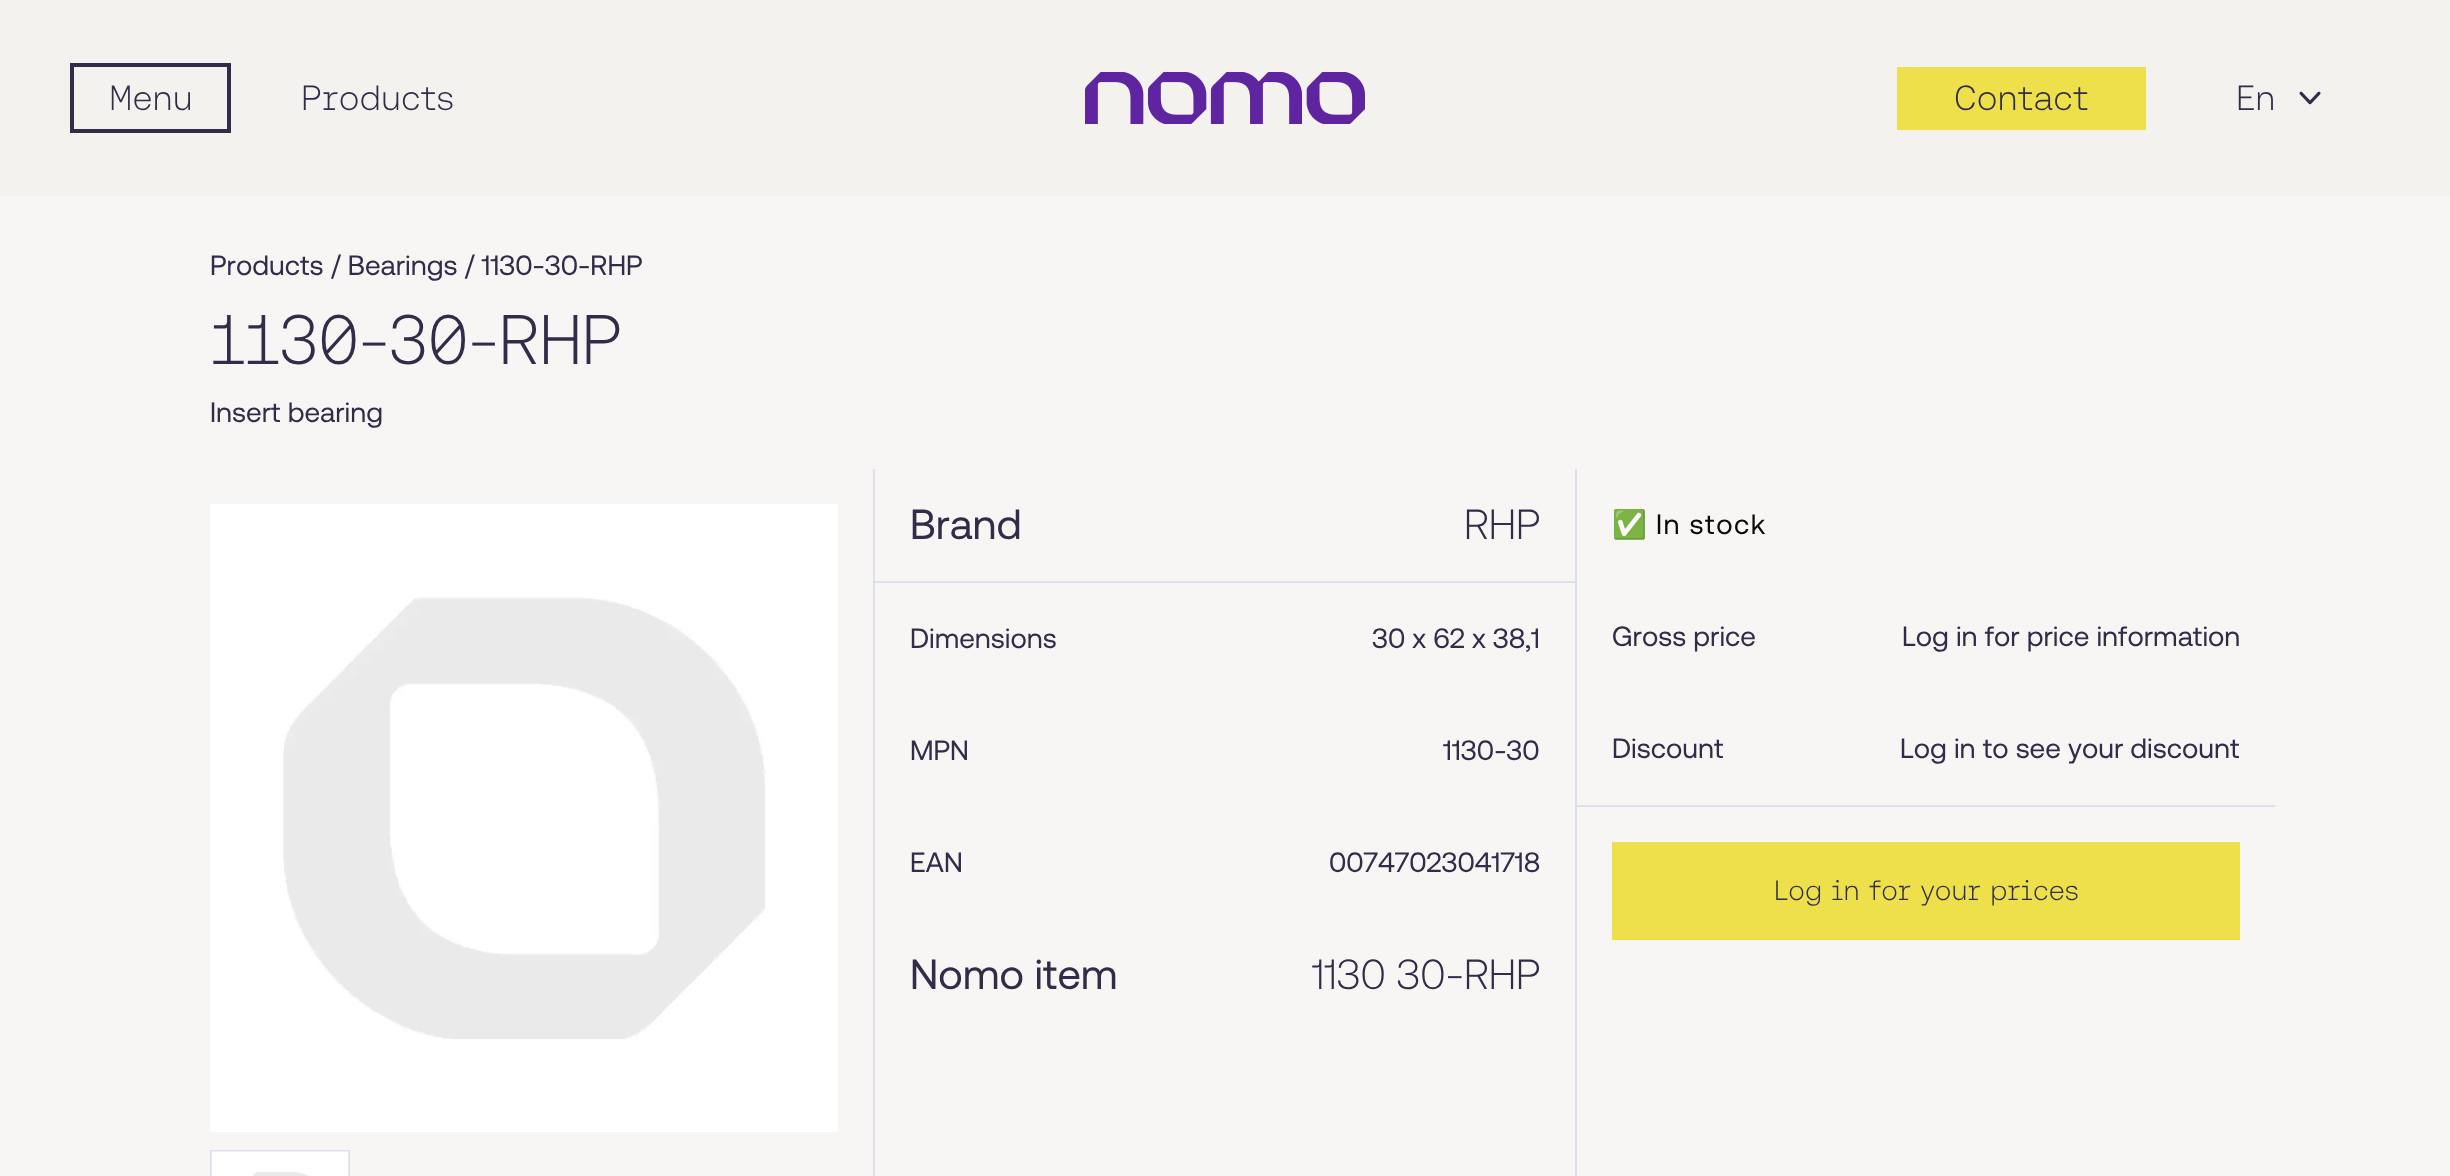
<svg xmlns="http://www.w3.org/2000/svg" width="2450" height="1176">
	<style>*{font-kerning:none!important;font-variant-ligatures:none!important}</style>
	<rect width="100%" height="100%" fill="#F7F6F5" />
	<rect x="0" y="0" width="2450" height="196" fill="#F3F2EF" />
	<rect x="72" y="65" width="157" height="66" fill="none" stroke="#322C49" stroke-width="4" />
	<g font-family="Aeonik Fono" font-size="35" font-weight="300" fill="#322C49">
		<text x="109" y="110">Menu</text>
		<text x="301" y="110">Products</text>
	</g>
	<image x="1085" y="72" width="280" height="52" href="assets/img1.png" />
	<rect x="1897" y="67" width="249" height="63" fill="#EDE04B" />
	<g font-family="Aeonik Fono" font-size="35" font-weight="300" fill="#322C49">
		<text x="1954" y="110">Contact</text>
		<text x="2236" y="110">En</text>
	</g>
	<image x="2299" y="91" width="22" height="14" href="assets/img2.png" />
	<text x="210" y="275" font-family="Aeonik" font-size="28" fill="#322C49">Products / Bearings / 1130-30-RHP</text>
	<text x="210" y="364" font-family="Aeonik Fono" font-size="70" font-weight="300" letter-spacing="-1.75" fill="#322C49">1130-30-RHP</text>
	<text x="210" y="422" font-family="Aeonik" font-size="28" fill="#322C49">Insert bearing</text>
	<rect x="873" y="469" width="2" height="707" fill="#DEE0EC" />
	<image x="210" y="504" width="628" height="628" href="assets/img3.png" />
	<rect x="211" y="1151" width="138" height="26" fill="none" stroke="#DEE0EC" stroke-width="2" />
	<image x="211" y="1151" width="138" height="25" href="assets/img4.png" />
	<rect x="875" y="581" width="700" height="2" fill="#DEE0EC" />
	<text x="910" y="539" font-family="Aeonik" font-size="42" fill="#322C49">Brand</text>
	<text x="1464" y="539" font-family="Aeonik" font-size="42" font-weight="300" fill="#322C49">RHP</text>
	<g font-family="Aeonik" font-size="28" fill="#322C49">
		<text x="910" y="648">Dimensions</text>
		<text x="1372" y="648">30 x 62 x 38,1</text>
		<text x="910" y="760">MPN</text>
		<text x="1443" y="760">1130-30</text>
		<text x="910" y="872">EAN</text>
		<text x="1329" y="872">00747023041718</text>
	</g>
	<text x="910" y="989" font-family="Aeonik" font-size="42" fill="#322C49">Nomo item</text>
	<text x="1312" y="989" font-family="Aeonik" font-size="42" font-weight="300" fill="#322C49">1130 30-RHP</text>
	<rect x="1575" y="469" width="2" height="707" fill="#DEE0EC" />
	<text x="1612" y="534" font-family="Noto Color Emoji" font-size="28" letter-spacing="1.5" fill="#0A0A0A">✅</text>
	<text x="1656" y="534" font-family="Aeonik" font-size="28" letter-spacing="1.5" fill="#0A0A0A">In stock</text>
	<g font-family="Aeonik" font-size="28" fill="#322C49">
		<text x="1612" y="646">Gross price</text>
		<text x="1902" y="646">Log in for price information</text>
	</g>
	<rect x="1577" y="805" width="698" height="2" fill="#DEE0EC" />
	<g font-family="Aeonik" font-size="28" fill="#322C49">
		<text x="1612" y="758">Discount</text>
		<text x="1900" y="758">Log in to see your discount</text>
	</g>
	<rect x="1612" y="842" width="628" height="98" fill="#EDE04B" />
	<text x="1774" y="900" font-family="Aeonik Fono" font-size="28" font-weight="300" fill="#322C49">Log in for your prices</text>
</svg>
